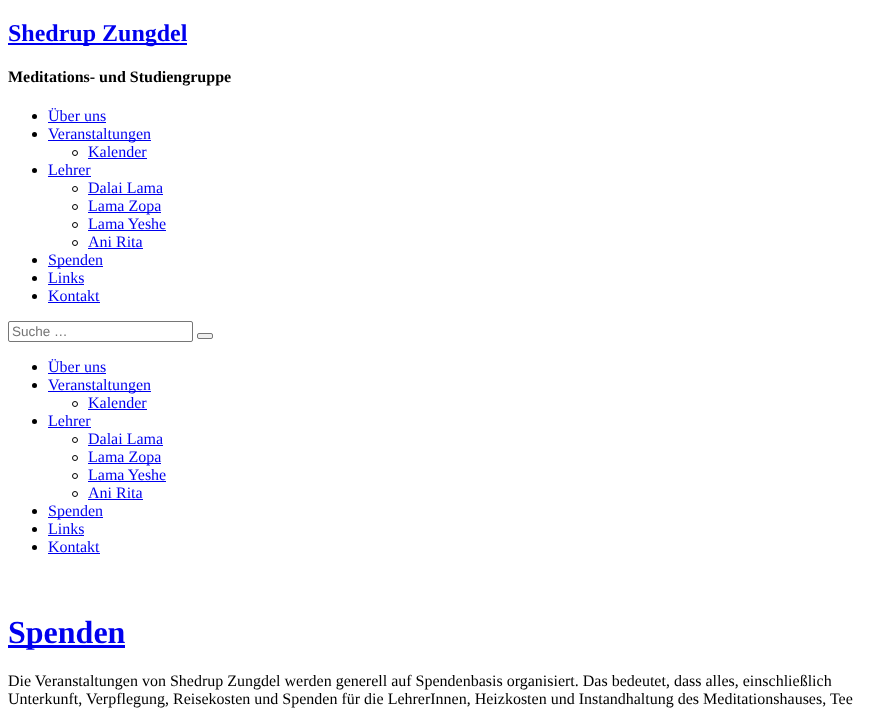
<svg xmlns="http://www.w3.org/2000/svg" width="888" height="719">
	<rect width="100%" height="100%" fill="#FFFFFF" />
	<rect x="8" y="43" width="179" height="2" fill="#0000EE" />
	<text x="8" y="41" font-family="Liberation Serif" font-size="24" font-weight="700" fill="#0000EE">Shedrup Zungdel</text>
	<text x="8" y="82" font-family="Liberation Serif" font-size="16" font-weight="700" fill="#000000">Meditations- und Studiengruppe</text>
	<circle cx="34.5" cy="116.5" r="2.5" fill="#000000" />
	<text x="48" y="121" font-family="Liberation Serif" font-size="16" fill="#0000EE">Über uns</text>
	<rect x="48" y="122" width="58" height="1" fill="#0000EE" />
	<circle cx="34.5" cy="134.5" r="2.5" fill="#000000" />
	<rect x="48" y="140" width="103" height="1" fill="#0000EE" />
	<text x="48" y="139" font-family="Liberation Serif" font-size="16" fill="#0000EE">Veranstaltungen</text>
	<circle cx="75" cy="153" r="2.5" fill="none" stroke="#000000" />
	<text x="88" y="157" font-family="Liberation Serif" font-size="16" fill="#0000EE">Kalender</text>
	<rect x="88" y="158" width="59" height="1" fill="#0000EE" />
	<circle cx="34.5" cy="170.5" r="2.5" fill="#000000" />
	<text x="48" y="175" font-family="Liberation Serif" font-size="16" fill="#0000EE">Lehrer</text>
	<rect x="48" y="176" width="43" height="1" fill="#0000EE" />
	<circle cx="75" cy="189" r="2.5" fill="none" stroke="#000000" />
	<text x="88" y="193" font-family="Liberation Serif" font-size="16" fill="#0000EE">Dalai Lama</text>
	<rect x="88" y="194" width="75" height="1" fill="#0000EE" />
	<circle cx="75" cy="207" r="2.5" fill="none" stroke="#000000" />
	<rect x="88" y="212" width="73" height="1" fill="#0000EE" />
	<text x="88" y="211" font-family="Liberation Serif" font-size="16" fill="#0000EE">Lama Zopa</text>
	<circle cx="75" cy="225" r="2.5" fill="none" stroke="#000000" />
	<text x="88" y="229" font-family="Liberation Serif" font-size="16" fill="#0000EE">Lama Yeshe</text>
	<rect x="88" y="230" width="78" height="1" fill="#0000EE" />
	<circle cx="75" cy="243" r="2.5" fill="none" stroke="#000000" />
	<text x="88" y="247" font-family="Liberation Serif" font-size="16" fill="#0000EE">Ani Rita</text>
	<rect x="88" y="248" width="55" height="1" fill="#0000EE" />
	<circle cx="34.5" cy="260.5" r="2.5" fill="#000000" />
	<rect x="48" y="266" width="55" height="1" fill="#0000EE" />
	<text x="48" y="265" font-family="Liberation Serif" font-size="16" fill="#0000EE">Spenden</text>
	<circle cx="34.5" cy="278.5" r="2.5" fill="#000000" />
	<text x="48" y="283" font-family="Liberation Serif" font-size="16" fill="#0000EE">Links</text>
	<rect x="48" y="284" width="36" height="1" fill="#0000EE" />
	<circle cx="34.5" cy="296.5" r="2.5" fill="#000000" />
	<text x="48" y="301" font-family="Liberation Serif" font-size="16" fill="#0000EE">Kontakt</text>
	<rect x="48" y="302" width="52" height="1" fill="#0000EE" />
	<rect x="8.5" y="321.5" width="184" height="20" rx="1.5" fill="none" stroke="#767676" />
	<text x="12" y="336" font-family="Liberation Sans" font-size="13.5" fill="#757575">Suche …</text>
	<rect x="197.5" y="333.5" width="15" height="5" rx="1.5" fill="#EFEFEF" stroke="#767676" />
	<circle cx="34.5" cy="367.5" r="2.5" fill="#000000" />
	<text x="48" y="372" font-family="Liberation Serif" font-size="16" fill="#0000EE">Über uns</text>
	<rect x="48" y="373" width="58" height="1" fill="#0000EE" />
	<circle cx="34.5" cy="385.5" r="2.5" fill="#000000" />
	<rect x="48" y="391" width="103" height="1" fill="#0000EE" />
	<text x="48" y="390" font-family="Liberation Serif" font-size="16" fill="#0000EE">Veranstaltungen</text>
	<circle cx="75" cy="404" r="2.5" fill="none" stroke="#000000" />
	<text x="88" y="408" font-family="Liberation Serif" font-size="16" fill="#0000EE">Kalender</text>
	<rect x="88" y="409" width="59" height="1" fill="#0000EE" />
	<circle cx="34.5" cy="421.5" r="2.5" fill="#000000" />
	<text x="48" y="426" font-family="Liberation Serif" font-size="16" fill="#0000EE">Lehrer</text>
	<rect x="48" y="427" width="43" height="1" fill="#0000EE" />
	<circle cx="75" cy="440" r="2.5" fill="none" stroke="#000000" />
	<text x="88" y="444" font-family="Liberation Serif" font-size="16" fill="#0000EE">Dalai Lama</text>
	<rect x="88" y="445" width="75" height="1" fill="#0000EE" />
	<circle cx="75" cy="458" r="2.5" fill="none" stroke="#000000" />
	<rect x="88" y="463" width="73" height="1" fill="#0000EE" />
	<text x="88" y="462" font-family="Liberation Serif" font-size="16" fill="#0000EE">Lama Zopa</text>
	<circle cx="75" cy="476" r="2.5" fill="none" stroke="#000000" />
	<text x="88" y="480" font-family="Liberation Serif" font-size="16" fill="#0000EE">Lama Yeshe</text>
	<rect x="88" y="481" width="78" height="1" fill="#0000EE" />
	<circle cx="75" cy="494" r="2.5" fill="none" stroke="#000000" />
	<text x="88" y="498" font-family="Liberation Serif" font-size="16" fill="#0000EE">Ani Rita</text>
	<rect x="88" y="499" width="55" height="1" fill="#0000EE" />
	<circle cx="34.5" cy="511.5" r="2.5" fill="#000000" />
	<rect x="48" y="517" width="55" height="1" fill="#0000EE" />
	<text x="48" y="516" font-family="Liberation Serif" font-size="16" fill="#0000EE">Spenden</text>
	<circle cx="34.5" cy="529.5" r="2.5" fill="#000000" />
	<text x="48" y="534" font-family="Liberation Serif" font-size="16" fill="#0000EE">Links</text>
	<rect x="48" y="535" width="36" height="1" fill="#0000EE" />
	<circle cx="34.5" cy="547.5" r="2.5" fill="#000000" />
	<text x="48" y="552" font-family="Liberation Serif" font-size="16" fill="#0000EE">Kontakt</text>
	<rect x="48" y="553" width="52" height="1" fill="#0000EE" />
	<rect x="8" y="645" width="117" height="3" fill="#0000EE" />
	<text x="8" y="643" font-family="Liberation Serif" font-size="32" font-weight="700" fill="#0000EE">Spenden</text>
	<g font-family="Liberation Serif" font-size="16" fill="#000000">
		<text x="8" y="686">Die Veranstaltungen von Shedrup Zungdel werden generell auf Spendenbasis organisiert. Das bedeutet, dass alles, einschließlich</text>
		<text x="8" y="704">Unterkunft, Verpflegung, Reisekosten und Spenden für die LehrerInnen, Heizkosten und Instandhaltung des Meditationshauses, Tee</text>
	</g>
</svg>
